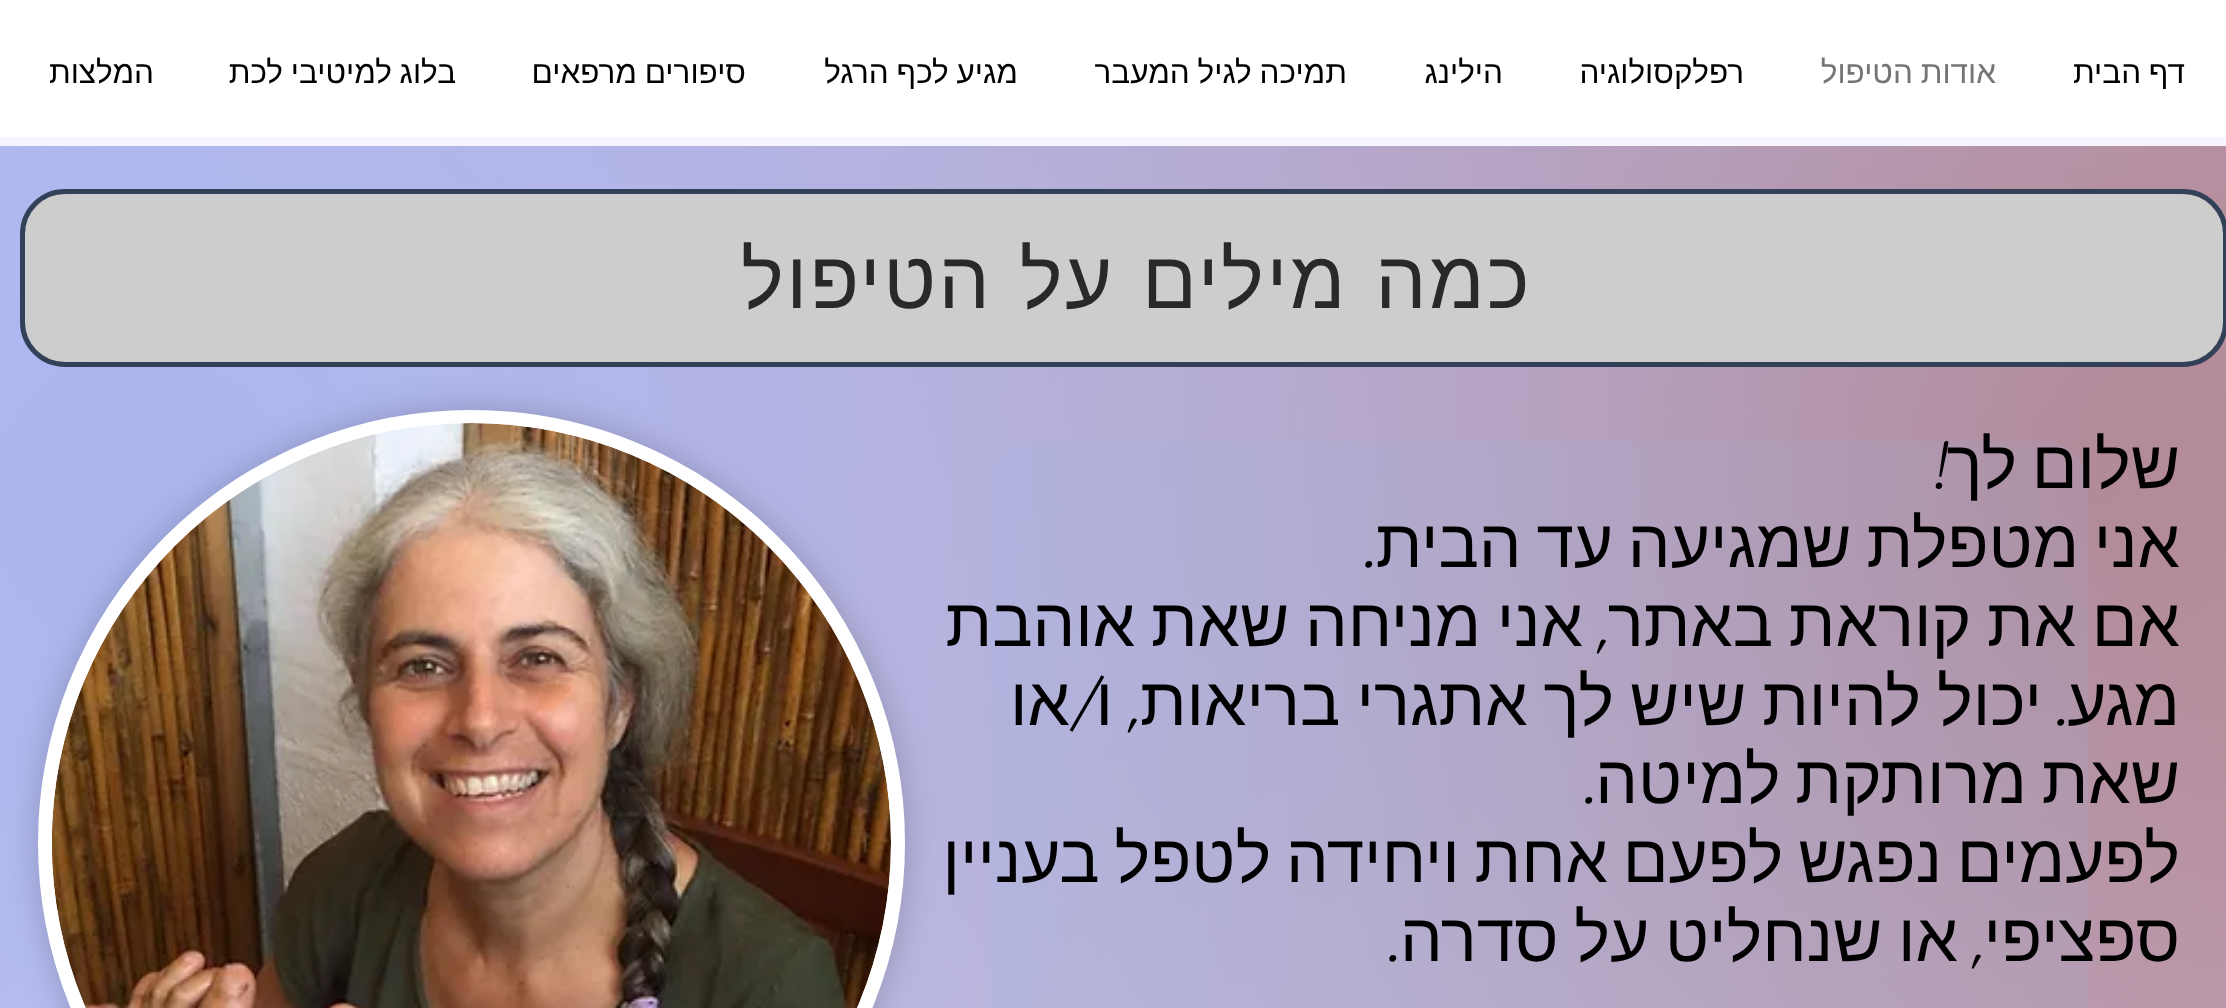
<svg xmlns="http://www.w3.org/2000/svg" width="2226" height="1008">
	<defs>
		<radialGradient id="g1" gradientUnits="userSpaceOnUse" cx="1089" cy="1570" r="1845"><stop offset="0" stop-color="#EFEBFB" /><stop offset="1" stop-color="#CDC5F5" /></radialGradient>
		<radialGradient id="g2" gradientUnits="userSpaceOnUse" cx="2087" cy="475" r="3293"><stop offset="0" stop-color="#B3838A" /><stop offset="0.7" stop-color="#B3838A" stop-opacity="0" /></radialGradient>
		<radialGradient id="g3" gradientUnits="userSpaceOnUse" cx="137" cy="509" r="3268"><stop offset="0" stop-color="#ABB6EF" /><stop offset="0.7" stop-color="#ABB6EF" stop-opacity="0" /></radialGradient>
	</defs>
	<rect width="100%" height="100%" fill="#FFFFFF" />
	<text x="2185" y="83" word-spacing="-1" font-family="Liberation Sans" font-size="31.5" direction="rtl" fill="#000000">דף הבית</text>
	<text x="1996" y="83" word-spacing="-1" font-family="Liberation Sans" font-size="31.5" direction="rtl" fill="#757575">אודות הטיפול</text>
	<g font-family="Liberation Sans" font-size="31.5" direction="rtl" fill="#000000">
		<text x="1744" y="83">רפלקסולוגיה</text>
		<text x="1503" y="83">הילינג</text>
		<text x="1347" y="83" word-spacing="-1">תמיכה לגיל המעבר</text>
		<text x="1018" y="83" word-spacing="-1">מגיע לכף הרגל</text>
		<text x="746" y="83">סיפורים</text>
		<text x="637" y="83">מרפאים</text>
		<text x="456" y="83" word-spacing="-1">בלוג למיטיבי לכת</text>
		<text x="154" y="83">המלצות</text>
	</g>
	<rect x="0" y="137" width="2226" height="9" fill="#F6F4FD" />
	<rect x="0" y="146" width="2226" height="862" fill="url(#g1)" />
	<rect x="0" y="146" width="2226" height="862" fill="url(#g2)" />
	<rect x="0" y="146" width="2226" height="862" fill="url(#g3)" />
	<rect x="22.5" y="191.5" width="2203" height="173" rx="42.5" fill="#CDCDCD" stroke="#324158" stroke-width="5" />
	<text x="1532" y="308" word-spacing="2.5" font-family="Liberation Sans" font-size="81" letter-spacing="2.4" direction="rtl" fill="#292929">כמה מילים על הטיפול</text>
	<rect x="990" y="441" width="1098" height="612" rx="45" fill="#97C0E8" fill-opacity="0.12" />
	<text x="1947" y="488" font-family="'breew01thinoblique'" font-size="67.5" font-weight="100" direction="rtl" fill="#000000">!</text>
	<g font-family="Liberation Sans" font-size="67.5" direction="rtl" fill="#000000">
		<text x="2180" y="488" word-spacing="-4">שלום לך</text>
		<text x="2180" y="567" word-spacing="-4">אני מטפלת שמגיעה עד הבית</text>
	</g>
	<text x="1375" y="567" font-family="'breew01thinoblique'" font-size="67.5" font-weight="100" direction="rtl" fill="#000000">.</text>
	<text x="2180" y="646" word-spacing="-3" font-family="Liberation Sans" font-size="67.5" direction="rtl" fill="#000000">אם את קוראת באתר</text>
	<text x="1609" y="646" font-family="'breew01thinoblique'" font-size="67.5" font-weight="100" direction="rtl" fill="#000000">,</text>
	<rect x="38" y="410" width="867" height="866" rx="433" fill="#000000" fill-opacity="0.2" filter="blur(16px)" />
	<g font-family="Liberation Sans" font-size="67.5" direction="rtl" fill="#000000">
		<text x="1583" y="646" word-spacing="-3">אני מניחה שאת אוהבת</text>
		<text x="2180" y="725">מגע</text>
		<text x="2042" y="725" word-spacing="-2.75">יכול להיות שיש לך אתגרי בריאות</text>
		<text x="1070" y="725">או</text>
	</g>
	<g font-family="'breew01thinoblique'" font-size="67.5" font-weight="100" direction="rtl" fill="#000000">
		<text x="1096" y="725">/</text>
		<text x="2067" y="725">.</text>
		<text x="1140" y="725">,</text>
	</g>
	<g font-family="Liberation Sans" font-size="67.5" direction="rtl" fill="#000000">
		<text x="1113" y="725">ו</text>
		<text x="2180" y="803" word-spacing="-4">שאת מרותקת למיטה</text>
	</g>
	<text x="1595" y="803" font-family="'breew01thinoblique'" font-size="67.5" font-weight="100" direction="rtl" fill="#000000">.</text>
	<g font-family="Liberation Sans" font-size="67.5" direction="rtl" fill="#000000">
		<text x="2180" y="882" word-spacing="-4">לפעמים נפגש לפעם אחת ויחידה לטפל בעניין</text>
		<text x="2180" y="961">ספציפי</text>
	</g>
	<text x="1984" y="961" font-family="'breew01thinoblique'" font-size="67.5" font-weight="100" direction="rtl" fill="#000000">,</text>
	<text x="1958" y="961" word-spacing="-3" font-family="Liberation Sans" font-size="67.5" direction="rtl" fill="#000000">או שנחליט על סדרה</text>
	<text x="1399" y="961" font-family="'breew01thinoblique'" font-size="67.5" font-weight="100" direction="rtl" fill="#000000">.</text>
	<rect x="45" y="417" width="853" height="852" rx="426" fill="#FFFFFF" stroke="#FFFFFF" stroke-width="14" />
	<image x="52" y="423" width="839" height="585" href="assets/img1.png" />
</svg>
